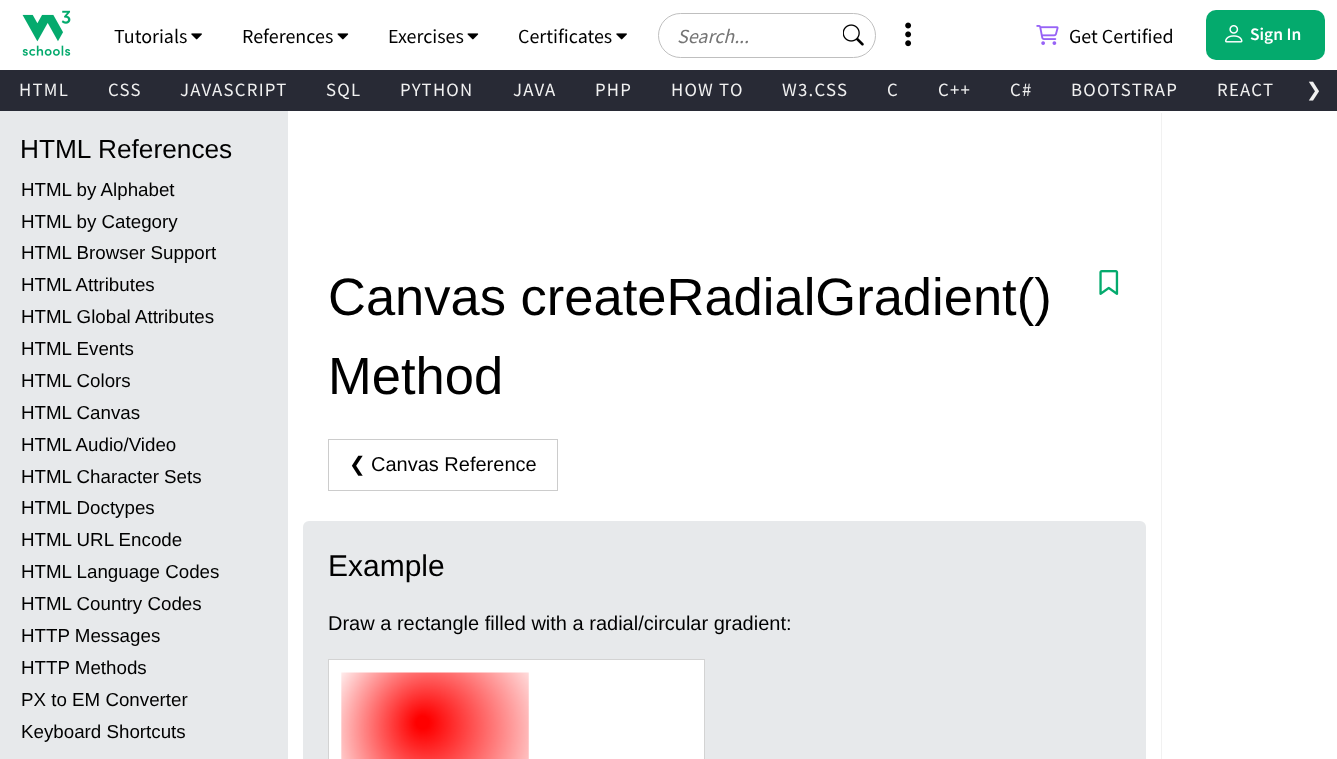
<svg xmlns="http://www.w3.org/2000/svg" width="1337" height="759">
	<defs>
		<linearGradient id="g1" gradientUnits="userSpaceOnUse" x1="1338" y1="91" x2="1280" y2="91"><stop offset="0.7" stop-color="#282A35" /><stop offset="1" stop-color="#282A35" stop-opacity="0" /></linearGradient>
	</defs>
	<rect width="100%" height="100%" fill="#FFFFFF" />
	<image x="22" y="10" width="49" height="46" href="assets/img1.png" />
	<text x="114" y="43" font-family="Source Sans Pro" font-size="20" fill="#000000">Tutorials</text>
	<image x="191" y="33" width="11" height="7" href="assets/img2.png" />
	<text x="242" y="43" font-family="Source Sans Pro" font-size="20" fill="#000000">References</text>
	<image x="337" y="33" width="12" height="7" href="assets/img3.png" />
	<text x="388" y="43" font-family="Source Sans Pro" font-size="20" fill="#000000">Exercises</text>
	<image x="467" y="33" width="12" height="7" href="assets/img3.png" />
	<text x="518" y="43" font-family="Source Sans Pro" font-size="20" fill="#000000">Certificates</text>
	<image x="616" y="33" width="11" height="7" href="assets/img2.png" />
	<rect x="658.5" y="13.5" width="217" height="44" rx="22" fill="none" stroke="#BFBFBF" />
	<text x="677" y="43" font-family="Source Sans Pro" font-size="20" font-style="italic" fill="#757575">Search...</text>
	<image x="843" y="24" width="21" height="22" href="assets/img4.png" />
	<image x="905" y="22" width="7" height="25" href="assets/img5.png" />
	<image x="1036" y="25" width="23" height="20" href="assets/img6.png" />
	<text x="1069" y="43" font-family="Source Sans Pro" font-size="20" fill="#000000">Get Certified</text>
	<rect x="1206" y="10" width="119" height="50" rx="10" fill="#04AA6D" />
	<image x="1225" y="25" width="18" height="18" href="assets/img7.png" />
	<text x="1250" y="40" font-family="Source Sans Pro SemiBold" font-size="17.5" font-weight="600" fill="#FFFFFF">Sign In</text>
	<rect x="0" y="70" width="1297" height="41" fill="#282A35" />
	<g font-family="Source Sans Pro" font-size="18.75" letter-spacing="1.25" fill="#F1F1F1">
		<text x="19" y="96">HTML</text>
		<text x="108" y="96">CSS</text>
		<text x="180" y="96">JAVASCRIPT</text>
		<text x="326" y="96">SQL</text>
		<text x="400" y="96">PYTHON</text>
		<text x="513" y="96">JAVA</text>
		<text x="595" y="96">PHP</text>
		<text x="671" y="96">HOW TO</text>
		<text x="782" y="96">W3.CSS</text>
		<text x="887" y="96">C</text>
		<text x="938" y="96">C++</text>
		<text x="1010" y="96">C#</text>
		<text x="1071" y="96">BOOTSTRAP</text>
		<text x="1217" y="96">REACT</text>
	</g>
	<rect x="1297" y="70" width="40" height="41" fill="url(#g1)" />
	<text x="1306" y="96" font-family="DejaVu Sans" font-size="18.75" letter-spacing="1.25" fill="#F1F1F1">❯</text>
	<rect x="0" y="111" width="288" height="648" fill="#E7E9EB" />
	<g font-family="Liberation Sans" font-size="26.25" fill="#000000">
		<text x="20" y="158">HTML</text>
		<text x="98" y="158">References</text>
	</g>
	<g font-family="Liberation Sans" font-size="18.75" fill="#000000">
		<text x="21" y="196">HTML by Alphabet</text>
		<text x="21" y="228">HTML by Category</text>
		<text x="21" y="259">HTML Browser Support</text>
		<text x="21" y="291">HTML Attributes</text>
		<text x="21" y="323">HTML Global Attributes</text>
		<text x="21" y="355">HTML Events</text>
		<text x="21" y="387">HTML Colors</text>
		<text x="21" y="419">HTML Canvas</text>
		<text x="21" y="451">HTML Audio/Video</text>
		<text x="21" y="483">HTML Character Sets</text>
		<text x="21" y="514">HTML Doctypes</text>
		<text x="21" y="546">HTML URL Encode</text>
		<text x="21" y="578">HTML Language Codes</text>
		<text x="21" y="610">HTML Country Codes</text>
		<text x="21" y="642">HTTP Messages</text>
		<text x="21" y="674">HTTP Methods</text>
		<text x="21" y="706">PX to EM Converter</text>
		<text x="21" y="738">Keyboard Shortcuts</text>
	</g>
	<rect x="1161" y="113" width="1" height="646" fill="#F1F1F1" />
	<text x="328" y="315" font-family="Liberation Sans" font-size="52.5" fill="#000000">Canvas createRadialGradient()</text>
	<image x="1099" y="270" width="20" height="25" href="assets/img8.png" />
	<text x="328" y="394" font-family="Liberation Sans" font-size="52.5" fill="#000000">Method</text>
	<rect x="328.5" y="439.5" width="229" height="51" fill="none" stroke="#CCCCCC" />
	<text x="349" y="471" font-family="DejaVu Sans" font-size="20" fill="#000000">❮</text>
	<text x="371" y="471" font-family="Liberation Sans" font-size="20" fill="#000000">Canvas Reference</text>
	<rect x="303" y="521" width="843" height="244" rx="6" fill="#E7E9EB" />
	<text x="328" y="576" font-family="Liberation Sans" font-size="30" fill="#000000">Example</text>
	<text x="328" y="630" font-family="Liberation Sans" font-size="20" fill="#000000">Draw a rectangle filled with a radial/circular gradient:</text>
	<rect x="328.5" y="659.5" width="376" height="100" fill="#FFFFFF" stroke="#D3D3D3" />
	<image x="341" y="672" width="188" height="87" href="assets/img9.png" />
</svg>
